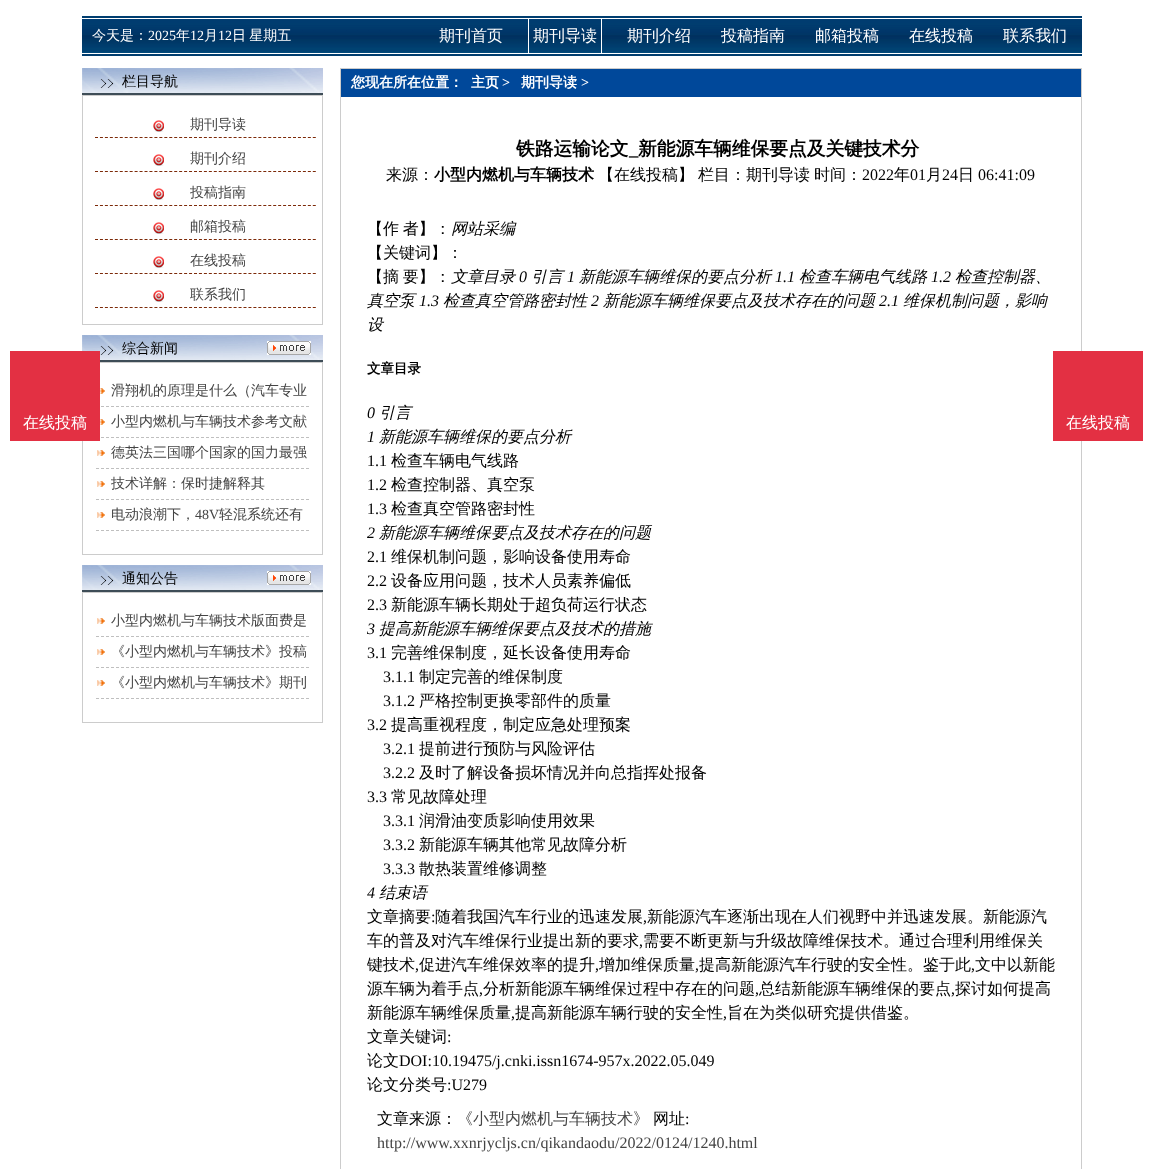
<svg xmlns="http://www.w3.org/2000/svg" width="1163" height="1169">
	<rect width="100%" height="100%" fill="#FFFFFF" />
	<image x="82" y="16" width="1000" height="40" href="assets/img1.png" />
	<text x="92" y="40" font-family="WenQuanYi Zen Hei" font-size="14" font-weight="500" fill="#FFFFFF">今天是：</text>
	<text x="148" y="40" font-family="Liberation Serif" font-size="14" fill="#FFFFFF">2025</text>
	<text x="176" y="40" font-family="WenQuanYi Zen Hei" font-size="14" font-weight="500" fill="#FFFFFF">年</text>
	<text x="190" y="40" font-family="Liberation Serif" font-size="14" fill="#FFFFFF">12</text>
	<text x="204" y="40" font-family="WenQuanYi Zen Hei" font-size="14" font-weight="500" fill="#FFFFFF">月</text>
	<text x="218" y="40" font-family="Liberation Serif" font-size="14" fill="#FFFFFF">12</text>
	<text x="232" y="40" word-spacing="-1" font-family="WenQuanYi Zen Hei" font-size="14" font-weight="500" fill="#FFFFFF">日 星期五</text>
	<text x="439" y="41" font-family="WenQuanYi Zen Hei" font-size="16" font-weight="500" fill="#FFFFFF">期刊首页</text>
	<image x="528" y="19" width="74" height="34" href="assets/img2.png" />
	<g font-family="WenQuanYi Zen Hei" font-size="16" font-weight="500" fill="#FFFFFF">
		<text x="533" y="41">期刊导读</text>
		<text x="627" y="41">期刊介绍</text>
		<text x="721" y="41">投稿指南</text>
		<text x="815" y="41">邮箱投稿</text>
		<text x="909" y="41">在线投稿</text>
		<text x="1003" y="41">联系我们</text>
	</g>
	<image x="82" y="335" width="241" height="27" href="assets/img3.png" />
	<rect x="82.5" y="362.5" width="240" height="192" fill="none" stroke="#CCCCCC" />
	<path d="M96 406.5H309" fill="none" stroke="#BFBFBF" stroke-dasharray="3 2" />
	<path d="M96 437.5H309" fill="none" stroke="#BFBFBF" stroke-dasharray="3 2" />
	<rect x="10" y="351" width="90" height="90" fill="#E33043" />
	<text x="23" y="428" font-family="WenQuanYi Zen Hei" font-size="16" font-weight="500" fill="#FFFFFF">在线投稿</text>
	<image x="82" y="68" width="241" height="27" href="assets/img3.png" />
	<text x="122" y="86" font-family="WenQuanYi Zen Hei" font-size="14" font-weight="500" fill="#000000">栏目导航</text>
	<rect x="82.5" y="95.5" width="240" height="229" fill="none" stroke="#CCCCCC" />
	<image x="153" y="120" width="11" height="12" href="assets/img4.png" />
	<path d="M95 137.5H316" fill="none" stroke="#7C2A09" stroke-dasharray="3 1.95" />
	<text x="190" y="129" font-family="WenQuanYi Zen Hei" font-size="14" font-weight="500" fill="#444444">期刊导读</text>
	<image x="153" y="154" width="11" height="12" href="assets/img4.png" />
	<path d="M95 171.5H316" fill="none" stroke="#7C2A09" stroke-dasharray="3 1.95" />
	<text x="190" y="163" font-family="WenQuanYi Zen Hei" font-size="14" font-weight="500" fill="#444444">期刊介绍</text>
	<image x="153" y="188" width="11" height="12" href="assets/img4.png" />
	<path d="M95 205.5H316" fill="none" stroke="#7C2A09" stroke-dasharray="3 1.95" />
	<text x="190" y="197" font-family="WenQuanYi Zen Hei" font-size="14" font-weight="500" fill="#444444">投稿指南</text>
	<image x="153" y="222" width="11" height="12" href="assets/img4.png" />
	<path d="M95 239.5H316" fill="none" stroke="#7C2A09" stroke-dasharray="3 1.95" />
	<text x="190" y="231" font-family="WenQuanYi Zen Hei" font-size="14" font-weight="500" fill="#444444">邮箱投稿</text>
	<image x="153" y="256" width="11" height="12" href="assets/img4.png" />
	<path d="M95 273.5H316" fill="none" stroke="#7C2A09" stroke-dasharray="3 1.95" />
	<text x="190" y="265" font-family="WenQuanYi Zen Hei" font-size="14" font-weight="500" fill="#444444">在线投稿</text>
	<image x="153" y="290" width="11" height="12" href="assets/img4.png" />
	<path d="M95 307.5H316" fill="none" stroke="#7C2A09" stroke-dasharray="3 1.95" />
	<text x="190" y="299" font-family="WenQuanYi Zen Hei" font-size="14" font-weight="500" fill="#444444">联系我们</text>
	<text x="122" y="353" font-family="WenQuanYi Zen Hei" font-size="14" font-weight="500" fill="#000000">综合新闻</text>
	<image x="267" y="341" width="44" height="14" href="assets/img5.png" />
	<image x="100" y="388" width="5" height="6" href="assets/img6.png" />
	<text x="111" y="395" font-family="WenQuanYi Zen Hei" font-size="14" font-weight="500" fill="#444444">滑翔机的原理是什么（汽车专业</text>
	<image x="100" y="419" width="5" height="6" href="assets/img6.png" />
	<text x="111" y="426" font-family="WenQuanYi Zen Hei" font-size="14" font-weight="500" fill="#444444">小型内燃机与车辆技术参考文献</text>
	<image x="97" y="450" width="8" height="6" href="assets/img7.png" />
	<path d="M96 468.5H309" fill="none" stroke="#BFBFBF" stroke-dasharray="3 2" />
	<text x="111" y="457" font-family="WenQuanYi Zen Hei" font-size="14" font-weight="500" fill="#444444">德英法三国哪个国家的国力最强</text>
	<image x="97" y="481" width="8" height="6" href="assets/img7.png" />
	<path d="M96 499.5H309" fill="none" stroke="#BFBFBF" stroke-dasharray="3 2" />
	<text x="111" y="488" font-family="WenQuanYi Zen Hei" font-size="14" font-weight="500" fill="#444444">技术详解：保时捷解释其</text>
	<image x="97" y="512" width="8" height="6" href="assets/img7.png" />
	<path d="M96 530.5H309" fill="none" stroke="#BFBFBF" stroke-dasharray="3 2" />
	<text x="111" y="519" font-family="WenQuanYi Zen Hei" font-size="14" font-weight="500" fill="#444444">电动浪潮下，</text>
	<text x="195" y="519" font-family="Liberation Serif" font-size="14" fill="#444444">48V</text>
	<text x="219" y="519" font-family="WenQuanYi Zen Hei" font-size="14" font-weight="500" fill="#444444">轻混系统还有</text>
	<image x="82" y="565" width="241" height="27" href="assets/img3.png" />
	<text x="122" y="583" font-family="WenQuanYi Zen Hei" font-size="14" font-weight="500" fill="#000000">通知公告</text>
	<image x="267" y="571" width="44" height="14" href="assets/img5.png" />
	<rect x="82.5" y="592.5" width="240" height="130" fill="none" stroke="#CCCCCC" />
	<image x="97" y="618" width="8" height="6" href="assets/img7.png" />
	<path d="M96 636.5H309" fill="none" stroke="#BFBFBF" stroke-dasharray="3 2" />
	<text x="111" y="625" font-family="WenQuanYi Zen Hei" font-size="14" font-weight="500" fill="#444444">小型内燃机与车辆技术版面费是</text>
	<image x="97" y="649" width="8" height="6" href="assets/img7.png" />
	<path d="M96 667.5H309" fill="none" stroke="#BFBFBF" stroke-dasharray="3 2" />
	<text x="111" y="656" font-family="WenQuanYi Zen Hei" font-size="14" font-weight="500" fill="#444444">《小型内燃机与车辆技术》投稿</text>
	<image x="97" y="680" width="8" height="6" href="assets/img7.png" />
	<path d="M96 698.5H309" fill="none" stroke="#BFBFBF" stroke-dasharray="3 2" />
	<text x="111" y="687" font-family="WenQuanYi Zen Hei" font-size="14" font-weight="500" fill="#444444">《小型内燃机与车辆技术》期刊</text>
	<rect x="340.5" y="68.5" width="741" height="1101" fill="none" stroke="#CCCCCC" />
	<rect x="341" y="69" width="740" height="28" fill="#00489A" />
	<g font-family="WenQuanYi Zen Hei" font-size="14" font-weight="700" fill="#FFFFFF">
		<text x="351" y="87">您现在所在位置：</text>
		<text x="471" y="87">主页</text>
	</g>
	<text x="502" y="87" font-family="Liberation Serif" font-size="14" font-weight="700" fill="#FFFFFF">&gt;</text>
	<text x="521" y="87" font-family="WenQuanYi Zen Hei" font-size="14" font-weight="700" fill="#FFFFFF">期刊导读</text>
	<text x="581" y="87" font-family="Liberation Serif" font-size="14" font-weight="700" fill="#FFFFFF">&gt;</text>
	<text x="516" y="155" font-family="WenQuanYi Zen Hei" font-size="18.75" font-weight="700" fill="#000000">铁路运输论文</text>
	<text x="629" y="155" font-family="Liberation Serif" font-size="18.75" font-weight="700" fill="#000000">_</text>
	<text x="638" y="155" font-family="WenQuanYi Zen Hei" font-size="18.75" font-weight="700" fill="#000000">新能源车辆维保要点及关键技术分</text>
	<text x="386" y="180" font-family="WenQuanYi Zen Hei" font-size="16" font-weight="500" fill="#000000">来源：</text>
	<text x="434" y="180" font-family="WenQuanYi Zen Hei" font-size="16" font-weight="700" fill="#000000">小型内燃机与车辆技术</text>
	<g font-family="WenQuanYi Zen Hei" font-size="16" font-weight="500" fill="#000000">
		<text x="598" y="180">【在线投稿】</text>
		<text x="698" y="180">栏目：期刊导读</text>
		<text x="814" y="180">时间：</text>
	</g>
	<text x="862" y="180" font-family="Liberation Serif" font-size="16" fill="#000000">2022</text>
	<text x="894" y="180" font-family="WenQuanYi Zen Hei" font-size="16" font-weight="500" fill="#000000">年</text>
	<text x="910" y="180" font-family="Liberation Serif" font-size="16" fill="#000000">01</text>
	<text x="926" y="180" font-family="WenQuanYi Zen Hei" font-size="16" font-weight="500" fill="#000000">月</text>
	<text x="942" y="180" font-family="Liberation Serif" font-size="16" fill="#000000">24</text>
	<text x="958" y="180" font-family="WenQuanYi Zen Hei" font-size="16" font-weight="500" fill="#000000">日</text>
	<text x="978" y="180" font-family="Liberation Serif" font-size="16" fill="#000000">06:41:09</text>
	<text x="367" y="234" word-spacing="-1" font-family="WenQuanYi Zen Hei" font-size="16" font-weight="500" fill="#000000">【作 者】：</text>
	<text x="451" y="234" font-family="WenQuanYi Zen Hei" font-size="16" font-weight="500" font-style="italic" fill="#000000">网站采编</text>
	<g font-family="WenQuanYi Zen Hei" font-size="16" font-weight="500" fill="#000000">
		<text x="367" y="258">【关键词】：</text>
		<text x="367" y="282" word-spacing="-1">【摘 要】：</text>
	</g>
	<text x="451" y="282" font-family="WenQuanYi Zen Hei" font-size="16" font-weight="500" font-style="italic" fill="#000000">文章目录</text>
	<text x="519" y="282" font-family="Liberation Serif" font-size="16" font-style="italic" fill="#000000">0</text>
	<text x="531" y="282" font-family="WenQuanYi Zen Hei" font-size="16" font-weight="500" font-style="italic" fill="#000000">引言</text>
	<text x="567" y="282" font-family="Liberation Serif" font-size="16" font-style="italic" fill="#000000">1</text>
	<text x="579" y="282" font-family="WenQuanYi Zen Hei" font-size="16" font-weight="500" font-style="italic" fill="#000000">新能源车辆维保的要点分析</text>
	<text x="775" y="282" font-family="Liberation Serif" font-size="16" font-style="italic" fill="#000000">1.1</text>
	<text x="799" y="282" font-family="WenQuanYi Zen Hei" font-size="16" font-weight="500" font-style="italic" fill="#000000">检查车辆电气线路</text>
	<text x="931" y="282" font-family="Liberation Serif" font-size="16" font-style="italic" fill="#000000">1.2</text>
	<g font-family="WenQuanYi Zen Hei" font-size="16" font-weight="500" font-style="italic" fill="#000000">
		<text x="955" y="282">检查控制器、</text>
		<text x="367" y="306">真空泵</text>
	</g>
	<text x="419" y="306" font-family="Liberation Serif" font-size="16" font-style="italic" fill="#000000">1.3</text>
	<text x="443" y="306" font-family="WenQuanYi Zen Hei" font-size="16" font-weight="500" font-style="italic" fill="#000000">检查真空管路密封性</text>
	<text x="591" y="306" font-family="Liberation Serif" font-size="16" font-style="italic" fill="#000000">2</text>
	<text x="603" y="306" font-family="WenQuanYi Zen Hei" font-size="16" font-weight="500" font-style="italic" fill="#000000">新能源车辆维保要点及技术存在的问题</text>
	<text x="879" y="306" font-family="Liberation Serif" font-size="16" font-style="italic" fill="#000000">2.1</text>
	<g font-family="WenQuanYi Zen Hei" font-size="16" font-weight="500" font-style="italic" fill="#000000">
		<text x="903" y="306">维保机制问题，影响</text>
		<text x="367" y="330">设</text>
	</g>
	<text x="367" y="373" font-family="WenQuanYi Zen Hei" font-size="13.5" font-weight="700" fill="#000000">文章目录</text>
	<text x="367" y="418" font-family="Liberation Serif" font-size="16" font-style="italic" fill="#000000">0</text>
	<text x="379" y="418" font-family="WenQuanYi Zen Hei" font-size="16" font-weight="500" font-style="italic" fill="#000000">引言</text>
	<text x="367" y="442" font-family="Liberation Serif" font-size="16" font-style="italic" fill="#000000">1</text>
	<text x="379" y="442" font-family="WenQuanYi Zen Hei" font-size="16" font-weight="500" font-style="italic" fill="#000000">新能源车辆维保的要点分析</text>
	<text x="367" y="466" font-family="Liberation Serif" font-size="16" fill="#000000">1.1</text>
	<text x="391" y="466" font-family="WenQuanYi Zen Hei" font-size="16" font-weight="500" fill="#000000">检查车辆电气线路</text>
	<text x="367" y="490" font-family="Liberation Serif" font-size="16" fill="#000000">1.2</text>
	<text x="391" y="490" font-family="WenQuanYi Zen Hei" font-size="16" font-weight="500" fill="#000000">检查控制器、真空泵</text>
	<text x="367" y="514" font-family="Liberation Serif" font-size="16" fill="#000000">1.3</text>
	<text x="391" y="514" font-family="WenQuanYi Zen Hei" font-size="16" font-weight="500" fill="#000000">检查真空管路密封性</text>
	<text x="367" y="538" font-family="Liberation Serif" font-size="16" font-style="italic" fill="#000000">2</text>
	<text x="379" y="538" font-family="WenQuanYi Zen Hei" font-size="16" font-weight="500" font-style="italic" fill="#000000">新能源车辆维保要点及技术存在的问题</text>
	<text x="367" y="562" font-family="Liberation Serif" font-size="16" fill="#000000">2.1</text>
	<text x="391" y="562" font-family="WenQuanYi Zen Hei" font-size="16" font-weight="500" fill="#000000">维保机制问题，影响设备使用寿命</text>
	<text x="367" y="586" font-family="Liberation Serif" font-size="16" fill="#000000">2.2</text>
	<text x="391" y="586" font-family="WenQuanYi Zen Hei" font-size="16" font-weight="500" fill="#000000">设备应用问题，技术人员素养偏低</text>
	<text x="367" y="610" font-family="Liberation Serif" font-size="16" fill="#000000">2.3</text>
	<text x="391" y="610" font-family="WenQuanYi Zen Hei" font-size="16" font-weight="500" fill="#000000">新能源车辆长期处于超负荷运行状态</text>
	<text x="367" y="634" font-family="Liberation Serif" font-size="16" font-style="italic" fill="#000000">3</text>
	<text x="379" y="634" font-family="WenQuanYi Zen Hei" font-size="16" font-weight="500" font-style="italic" fill="#000000">提高新能源车辆维保要点及技术的措施</text>
	<text x="367" y="658" font-family="Liberation Serif" font-size="16" fill="#000000">3.1</text>
	<text x="391" y="658" font-family="WenQuanYi Zen Hei" font-size="16" font-weight="500" fill="#000000">完善维保制度，延长设备使用寿命</text>
	<text x="383" y="682" font-family="Liberation Serif" font-size="16" fill="#000000">3.1.1</text>
	<text x="419" y="682" font-family="WenQuanYi Zen Hei" font-size="16" font-weight="500" fill="#000000">制定完善的维保制度</text>
	<text x="383" y="706" font-family="Liberation Serif" font-size="16" fill="#000000">3.1.2</text>
	<text x="419" y="706" font-family="WenQuanYi Zen Hei" font-size="16" font-weight="500" fill="#000000">严格控制更换零部件的质量</text>
	<text x="367" y="730" font-family="Liberation Serif" font-size="16" fill="#000000">3.2</text>
	<text x="391" y="730" font-family="WenQuanYi Zen Hei" font-size="16" font-weight="500" fill="#000000">提高重视程度，制定应急处理预案</text>
	<text x="383" y="754" font-family="Liberation Serif" font-size="16" fill="#000000">3.2.1</text>
	<text x="419" y="754" font-family="WenQuanYi Zen Hei" font-size="16" font-weight="500" fill="#000000">提前进行预防与风险评估</text>
	<text x="383" y="778" font-family="Liberation Serif" font-size="16" fill="#000000">3.2.2</text>
	<text x="419" y="778" font-family="WenQuanYi Zen Hei" font-size="16" font-weight="500" fill="#000000">及时了解设备损坏情况并向总指挥处报备</text>
	<text x="367" y="802" font-family="Liberation Serif" font-size="16" fill="#000000">3.3</text>
	<text x="391" y="802" font-family="WenQuanYi Zen Hei" font-size="16" font-weight="500" fill="#000000">常见故障处理</text>
	<text x="383" y="826" font-family="Liberation Serif" font-size="16" fill="#000000">3.3.1</text>
	<text x="419" y="826" font-family="WenQuanYi Zen Hei" font-size="16" font-weight="500" fill="#000000">润滑油变质影响使用效果</text>
	<text x="383" y="850" font-family="Liberation Serif" font-size="16" fill="#000000">3.3.2</text>
	<text x="419" y="850" font-family="WenQuanYi Zen Hei" font-size="16" font-weight="500" fill="#000000">新能源车辆其他常见故障分析</text>
	<text x="383" y="874" font-family="Liberation Serif" font-size="16" fill="#000000">3.3.3</text>
	<text x="419" y="874" font-family="WenQuanYi Zen Hei" font-size="16" font-weight="500" fill="#000000">散热装置维修调整</text>
	<text x="367" y="898" font-family="Liberation Serif" font-size="16" font-style="italic" fill="#000000">4</text>
	<text x="379" y="898" font-family="WenQuanYi Zen Hei" font-size="16" font-weight="500" font-style="italic" fill="#000000">结束语</text>
	<text x="367" y="922" font-family="WenQuanYi Zen Hei" font-size="16" font-weight="500" fill="#000000">文章摘要</text>
	<text x="431" y="922" font-family="Liberation Serif" font-size="16" fill="#000000">:</text>
	<text x="435" y="922" font-family="WenQuanYi Zen Hei" font-size="16" font-weight="500" fill="#000000">随着我国汽车行业的迅速发展</text>
	<text x="643" y="922" font-family="Liberation Serif" font-size="16" fill="#000000">,</text>
	<g font-family="WenQuanYi Zen Hei" font-size="16" font-weight="500" fill="#000000">
		<text x="647" y="922">新能源汽车逐渐出现在人们视野中并迅速发展。新能源汽</text>
		<text x="367" y="946">车的普及对汽车维保行业提出新的要求</text>
	</g>
	<text x="639" y="946" font-family="Liberation Serif" font-size="16" fill="#000000">,</text>
	<g font-family="WenQuanYi Zen Hei" font-size="16" font-weight="500" fill="#000000">
		<text x="643" y="946">需要不断更新与升级故障维保技术。通过合理利用维保关</text>
		<text x="367" y="970">键技术</text>
	</g>
	<text x="415" y="970" font-family="Liberation Serif" font-size="16" fill="#000000">,</text>
	<text x="419" y="970" font-family="WenQuanYi Zen Hei" font-size="16" font-weight="500" fill="#000000">促进汽车维保效率的提升</text>
	<text x="595" y="970" font-family="Liberation Serif" font-size="16" fill="#000000">,</text>
	<text x="599" y="970" font-family="WenQuanYi Zen Hei" font-size="16" font-weight="500" fill="#000000">增加维保质量</text>
	<text x="695" y="970" font-family="Liberation Serif" font-size="16" fill="#000000">,</text>
	<text x="699" y="970" font-family="WenQuanYi Zen Hei" font-size="16" font-weight="500" fill="#000000">提高新能源汽车行驶的安全性。鉴于此</text>
	<text x="971" y="970" font-family="Liberation Serif" font-size="16" fill="#000000">,</text>
	<g font-family="WenQuanYi Zen Hei" font-size="16" font-weight="500" fill="#000000">
		<text x="975" y="970">文中以新能</text>
		<text x="367" y="994">源车辆为着手点</text>
	</g>
	<text x="479" y="994" font-family="Liberation Serif" font-size="16" fill="#000000">,</text>
	<text x="483" y="994" font-family="WenQuanYi Zen Hei" font-size="16" font-weight="500" fill="#000000">分析新能源车辆维保过程中存在的问题</text>
	<text x="755" y="994" font-family="Liberation Serif" font-size="16" fill="#000000">,</text>
	<text x="759" y="994" font-family="WenQuanYi Zen Hei" font-size="16" font-weight="500" fill="#000000">总结新能源车辆维保的要点</text>
	<text x="951" y="994" font-family="Liberation Serif" font-size="16" fill="#000000">,</text>
	<g font-family="WenQuanYi Zen Hei" font-size="16" font-weight="500" fill="#000000">
		<text x="955" y="994">探讨如何提高</text>
		<text x="367" y="1018">新能源车辆维保质量</text>
	</g>
	<text x="511" y="1018" font-family="Liberation Serif" font-size="16" fill="#000000">,</text>
	<text x="515" y="1018" font-family="WenQuanYi Zen Hei" font-size="16" font-weight="500" fill="#000000">提高新能源车辆行驶的安全性</text>
	<text x="723" y="1018" font-family="Liberation Serif" font-size="16" fill="#000000">,</text>
	<g font-family="WenQuanYi Zen Hei" font-size="16" font-weight="500" fill="#000000">
		<text x="727" y="1018">旨在为类似研究提供借鉴。</text>
		<text x="367" y="1042">文章关键词</text>
	</g>
	<text x="447" y="1042" font-family="Liberation Serif" font-size="16" fill="#000000">:</text>
	<text x="367" y="1066" font-family="WenQuanYi Zen Hei" font-size="16" font-weight="500" fill="#000000">论文</text>
	<text x="399" y="1066" font-family="Liberation Serif" font-size="16" fill="#000000">DOI:10.19475/j.cnki.issn1674-957x.2022.05.049</text>
	<text x="367" y="1090" font-family="WenQuanYi Zen Hei" font-size="16" font-weight="500" fill="#000000">论文分类号</text>
	<text x="447" y="1090" font-family="Liberation Serif" font-size="16" fill="#000000">:U279</text>
	<text x="377" y="1124" font-family="WenQuanYi Zen Hei" font-size="16" font-weight="500" fill="#000000">文章来源：</text>
	<text x="457" y="1124" font-family="WenQuanYi Zen Hei" font-size="16" font-weight="500" fill="#444444">《小型内燃机与车辆技术》</text>
	<text x="653" y="1124" font-family="WenQuanYi Zen Hei" font-size="16" font-weight="500" fill="#000000">网址</text>
	<text x="685" y="1124" font-family="Liberation Serif" font-size="16" fill="#000000">:</text>
	<text x="377" y="1148" font-family="Liberation Serif" font-size="16" fill="#444444">http://www.xxnrjycljs.cn/qikandaodu/2022/0124/1240.html</text>
	<rect x="1053" y="351" width="90" height="90" fill="#E33043" />
	<text x="1066" y="428" font-family="WenQuanYi Zen Hei" font-size="16" font-weight="500" fill="#FFFFFF">在线投稿</text>
</svg>
